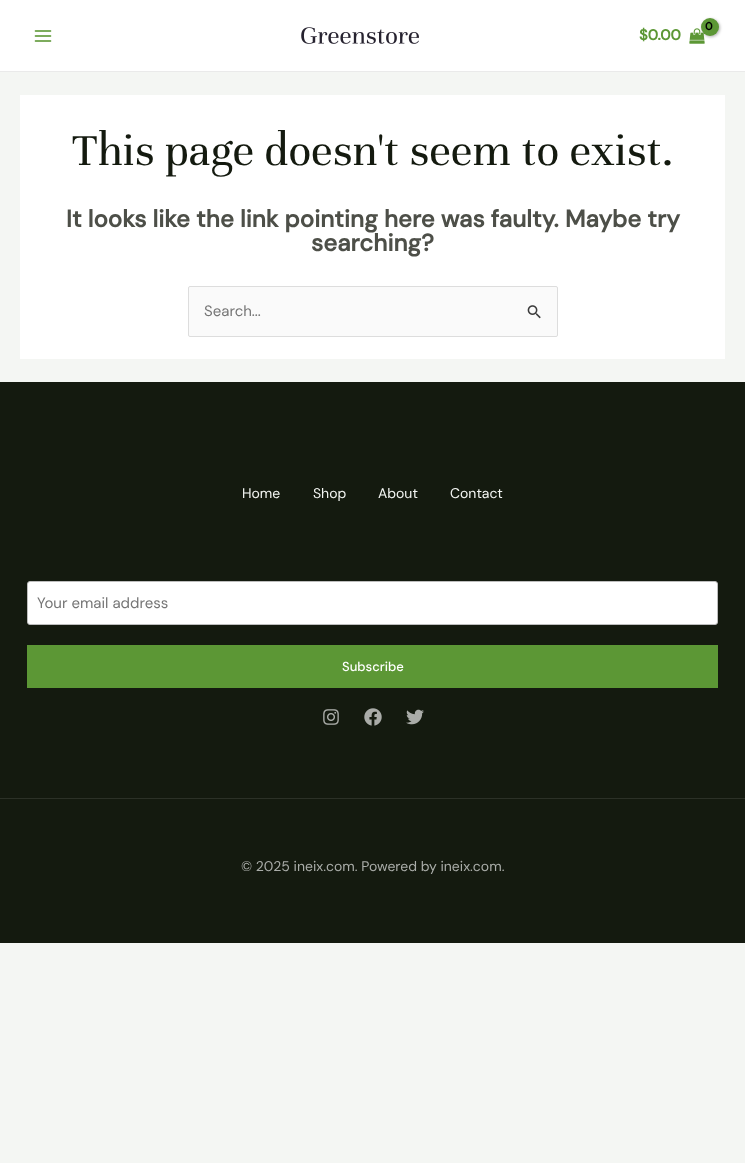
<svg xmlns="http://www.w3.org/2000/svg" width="745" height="1163">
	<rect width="100%" height="100%" fill="#F4F6F3" />
	<rect x="0" y="0" width="745" height="71" fill="#FFFFFF" />
	<rect x="0" y="71" width="745" height="1" fill="#EAEAEA" />
	<image x="34" y="30" width="18" height="12" href="assets/img1.png" />
	<image x="301" y="27" width="118" height="17" href="assets/img2.png" />
	<image x="689" y="28" width="16" height="16" href="assets/img3.png" />
	<rect x="702" y="19" width="18" height="18" rx="9" fill="#000000" fill-opacity="0.3" filter="blur(1.5px)" />
	<circle cx="710" cy="27" r="9" fill="#5C9735" />
	<text x="705" y="30" font-family="DM Sans" font-size="11" font-weight="700" fill="#000000">0</text>
	<text x="639" y="40" font-family="DM Sans" font-size="15" font-weight="700" fill="#5C9735">$0.00</text>
	<rect x="20" y="95" width="705" height="264" fill="#FFFFFF" />
	<text x="72" y="165" font-family="Unna" font-size="48" fill="#141A0F">This page doesn't seem to exist.</text>
	<g font-family="DM Sans" font-size="24" font-weight="700" fill="#4D4F48">
		<text x="66" y="227">It looks like the link pointing here was faulty. Maybe try</text>
		<text x="311" y="251">searching?</text>
	</g>
	<rect x="188.5" y="286.5" width="369" height="50" rx="1.5" fill="#FAFAFA" stroke="#DDDDDD" />
	<text x="204" y="316" font-family="DM Sans" font-size="15" fill="#757575">Search...</text>
	<image x="527" y="305" width="14" height="14" href="assets/img4.png" />
	<rect x="0" y="382" width="745" height="561" fill="#141A0F" />
	<g font-family="DM Sans" font-size="14" fill="#F4F6F3">
		<text x="242" y="498">Home</text>
		<text x="313" y="498">Shop</text>
		<text x="378" y="498">About</text>
		<text x="450" y="498">Contact</text>
	</g>
	<rect x="27.5" y="581.5" width="690" height="43" rx="2.5" fill="#FFFFFF" stroke="#BDBDBD" />
	<text x="37" y="608" font-family="DM Sans" font-size="15" fill="#757575">Your email address</text>
	<rect x="27" y="645" width="691" height="43" fill="#5C9735" />
	<text x="342" y="671" font-family="DM Sans" font-size="13" font-weight="500" fill="#FFFFFF">Subscribe</text>
	<image x="323" y="709" width="16" height="16" href="assets/img5.png" />
	<image x="364" y="708" width="18" height="18" href="assets/img6.png" />
	<image x="406" y="709" width="18" height="16" href="assets/img7.png" />
	<rect x="0" y="798" width="745" height="1" fill="#2C3127" />
	<text x="241" y="871" font-family="DM Sans" font-size="14" fill="#AAADA9">© 2025 ineix.com. Powered by ineix.com.</text>
</svg>
